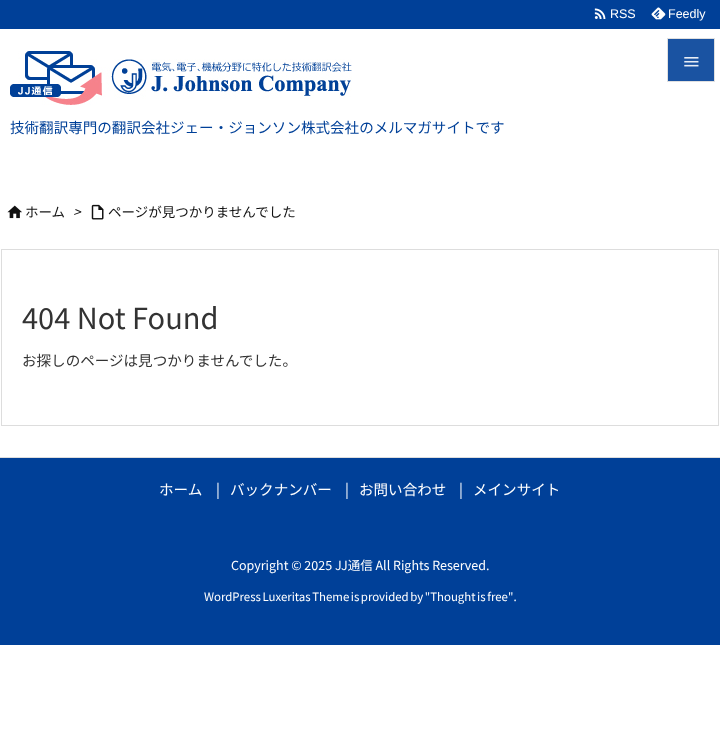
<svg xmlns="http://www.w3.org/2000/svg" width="720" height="736">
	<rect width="100%" height="100%" fill="#FFFFFF" />
	<rect x="0" y="0" width="720" height="29" fill="#004098" />
	<image x="594" y="8" width="12" height="11" href="assets/img1.png" />
	<text x="610" y="18" font-family="Liberation Sans" font-size="12.5" fill="#FFFFFF">RSS</text>
	<image x="651" y="7" width="15" height="13" href="assets/img2.png" />
	<text x="668" y="18" font-family="Liberation Sans" font-size="12.5" fill="#FFFFFF">Feedly</text>
	<rect x="667.5" y="38.5" width="47" height="43" fill="#1A53A2" stroke="#E0E0E0" />
	<image x="684" y="57" width="15" height="10" href="assets/img3.png" />
	<image x="10" y="51" width="342" height="54" href="assets/img4.png" />
	<text x="10" y="133" font-family="Noto Sans JP" font-size="14.55" font-weight="100" fill="#004098">技術翻訳専門の翻訳会社ジェー・ジョンソン株式会社のメルマガサイトです</text>
	<image x="7" y="205" width="15" height="14" href="assets/img5.png" />
	<text x="25" y="217" font-family="Noto Sans JP" font-size="13.5" font-weight="100" fill="#111111">ホーム</text>
	<text x="73" y="217" font-family="Noto Sans JP" font-size="13.5" font-weight="100" font-style="italic" fill="#111111">&gt;</text>
	<image x="91" y="204" width="13" height="16" href="assets/img6.png" />
	<text x="108" y="217" font-family="Noto Sans JP" font-size="13.5" font-weight="100" fill="#111111">ページが見つかりませんでした</text>
	<rect x="1.5" y="249.5" width="717" height="176" fill="none" stroke="#DDDDDD" />
	<text x="22" y="329" font-family="Noto Sans JP" font-size="29" font-weight="100" fill="#333333">404 Not Found</text>
	<text x="22" y="366" font-family="Noto Sans JP" font-size="14.55" font-weight="100" fill="#333333">お探しのページは見つかりませんでした。</text>
	<rect x="0" y="458" width="720" height="187" fill="#004098" />
	<rect x="0" y="457" width="720" height="1" fill="#DDDDDD" />
	<g font-family="Noto Sans JP" font-size="14.55" font-weight="100" fill="#FFFFFF">
		<text x="159" y="495">ホーム</text>
		<text x="216" y="495">|</text>
		<text x="230" y="495">バックナンバー</text>
		<text x="345" y="495">|</text>
		<text x="359" y="495">お問い合わせ</text>
		<text x="459" y="495">|</text>
		<text x="473" y="495">メインサイト</text>
	</g>
	<text x="231" y="570" font-family="Noto Sans JP" font-size="12.5" font-weight="100" fill="#FFFFFF">Copyright © 2025 JJ通信 All Rights Reserved.</text>
	<g font-family="Noto Sans JP" font-size="11.45" font-weight="100" fill="#FFFFFF">
		<text x="204" y="601" word-spacing="-1">WordPress Luxeritas Theme is provided by "Thought is free</text>
		<text x="508" y="601">".</text>
	</g>
</svg>
